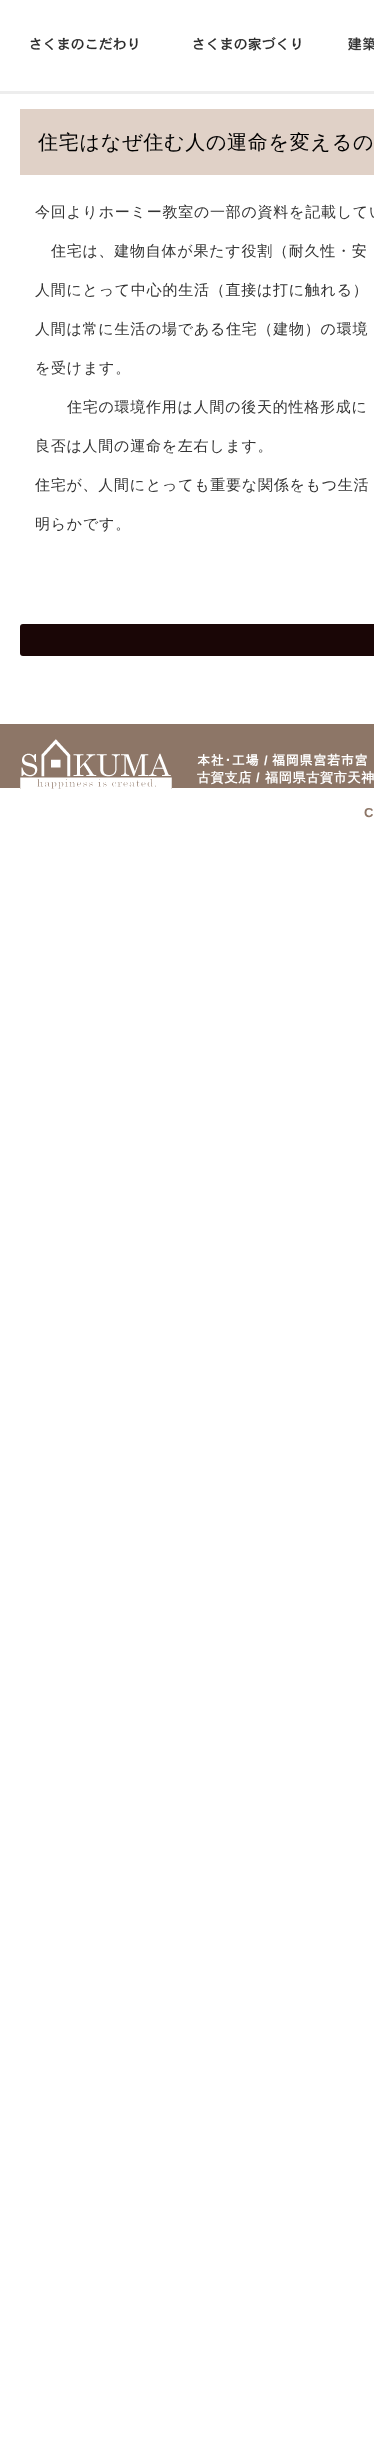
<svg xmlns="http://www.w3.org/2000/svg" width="374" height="2462">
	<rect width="100%" height="100%" fill="#FFFFFF" />
	<rect x="0" y="91" width="374" height="3" fill="#EDEDED" />
	<image x="30" y="37" width="108" height="13" href="assets/img1.png" />
	<image x="193" y="37" width="108" height="14" href="assets/img2.png" />
	<image x="348" y="37" width="26" height="14" href="assets/img3.png" />
	<rect x="20" y="109" width="354" height="66" fill="#E0D1C7" />
	<text x="38" y="149" font-family="WenQuanYi Zen Hei" font-size="20" font-weight="500" letter-spacing="0.75" fill="#000000">住宅はなぜ住む人の運命を変えるの</text>
	<g font-family="WenQuanYi Zen Hei" font-size="15" font-weight="500" letter-spacing="0.75" fill="#333333">
		<text x="35" y="217">今回よりホーミー教室の一部の資料を記載してい</text>
		<text x="51" y="256">住宅は、建物自体が果たす役割（耐久性・安</text>
		<text x="35" y="295">人間にとって中心的生活（直接は打に触れる）</text>
		<text x="35" y="334">人間は常に生活の場である住宅（建物）の環境</text>
		<text x="35" y="373">を受けます。</text>
		<text x="67" y="412">住宅の環境作用は人間の後天的性格形成に</text>
		<text x="35" y="451">良否は人間の運命を左右します。</text>
		<text x="35" y="490">住宅が、人間にとっても重要な関係をもつ生活</text>
		<text x="35" y="529">明らかです。</text>
	</g>
	<rect x="20" y="624" width="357" height="32" rx="3" fill="#1A0606" />
	<rect x="0" y="724" width="374" height="64" fill="#8D7667" />
	<image x="20" y="739" width="152" height="50" href="assets/img4.png" />
	<text x="197" y="765" font-family="IPAPGothic" font-size="13" font-weight="700" letter-spacing="0.75" fill="#FFFFFF">本社･工場</text>
	<text x="264" y="765" font-family="Liberation Sans" font-size="13" font-weight="700" letter-spacing="0.75" fill="#FFFFFF">/</text>
	<text x="272" y="765" font-family="IPAPGothic" font-size="13" font-weight="700" letter-spacing="0.75" fill="#FFFFFF">福岡県宮若市宮</text>
	<text x="197" y="782" font-family="WenQuanYi Zen Hei" font-size="13" font-weight="700" letter-spacing="0.75" fill="#FFFFFF">古賀支店</text>
	<text x="256" y="782" font-family="Liberation Sans" font-size="13" font-weight="700" letter-spacing="0.75" fill="#FFFFFF">/</text>
	<text x="265" y="782" font-family="WenQuanYi Zen Hei" font-size="13" font-weight="700" letter-spacing="0.75" fill="#FFFFFF">福岡県古賀市天神</text>
	<text x="364" y="817" font-family="Liberation Sans" font-size="13" font-weight="700" letter-spacing="1" fill="#8D7667">C</text>
</svg>
